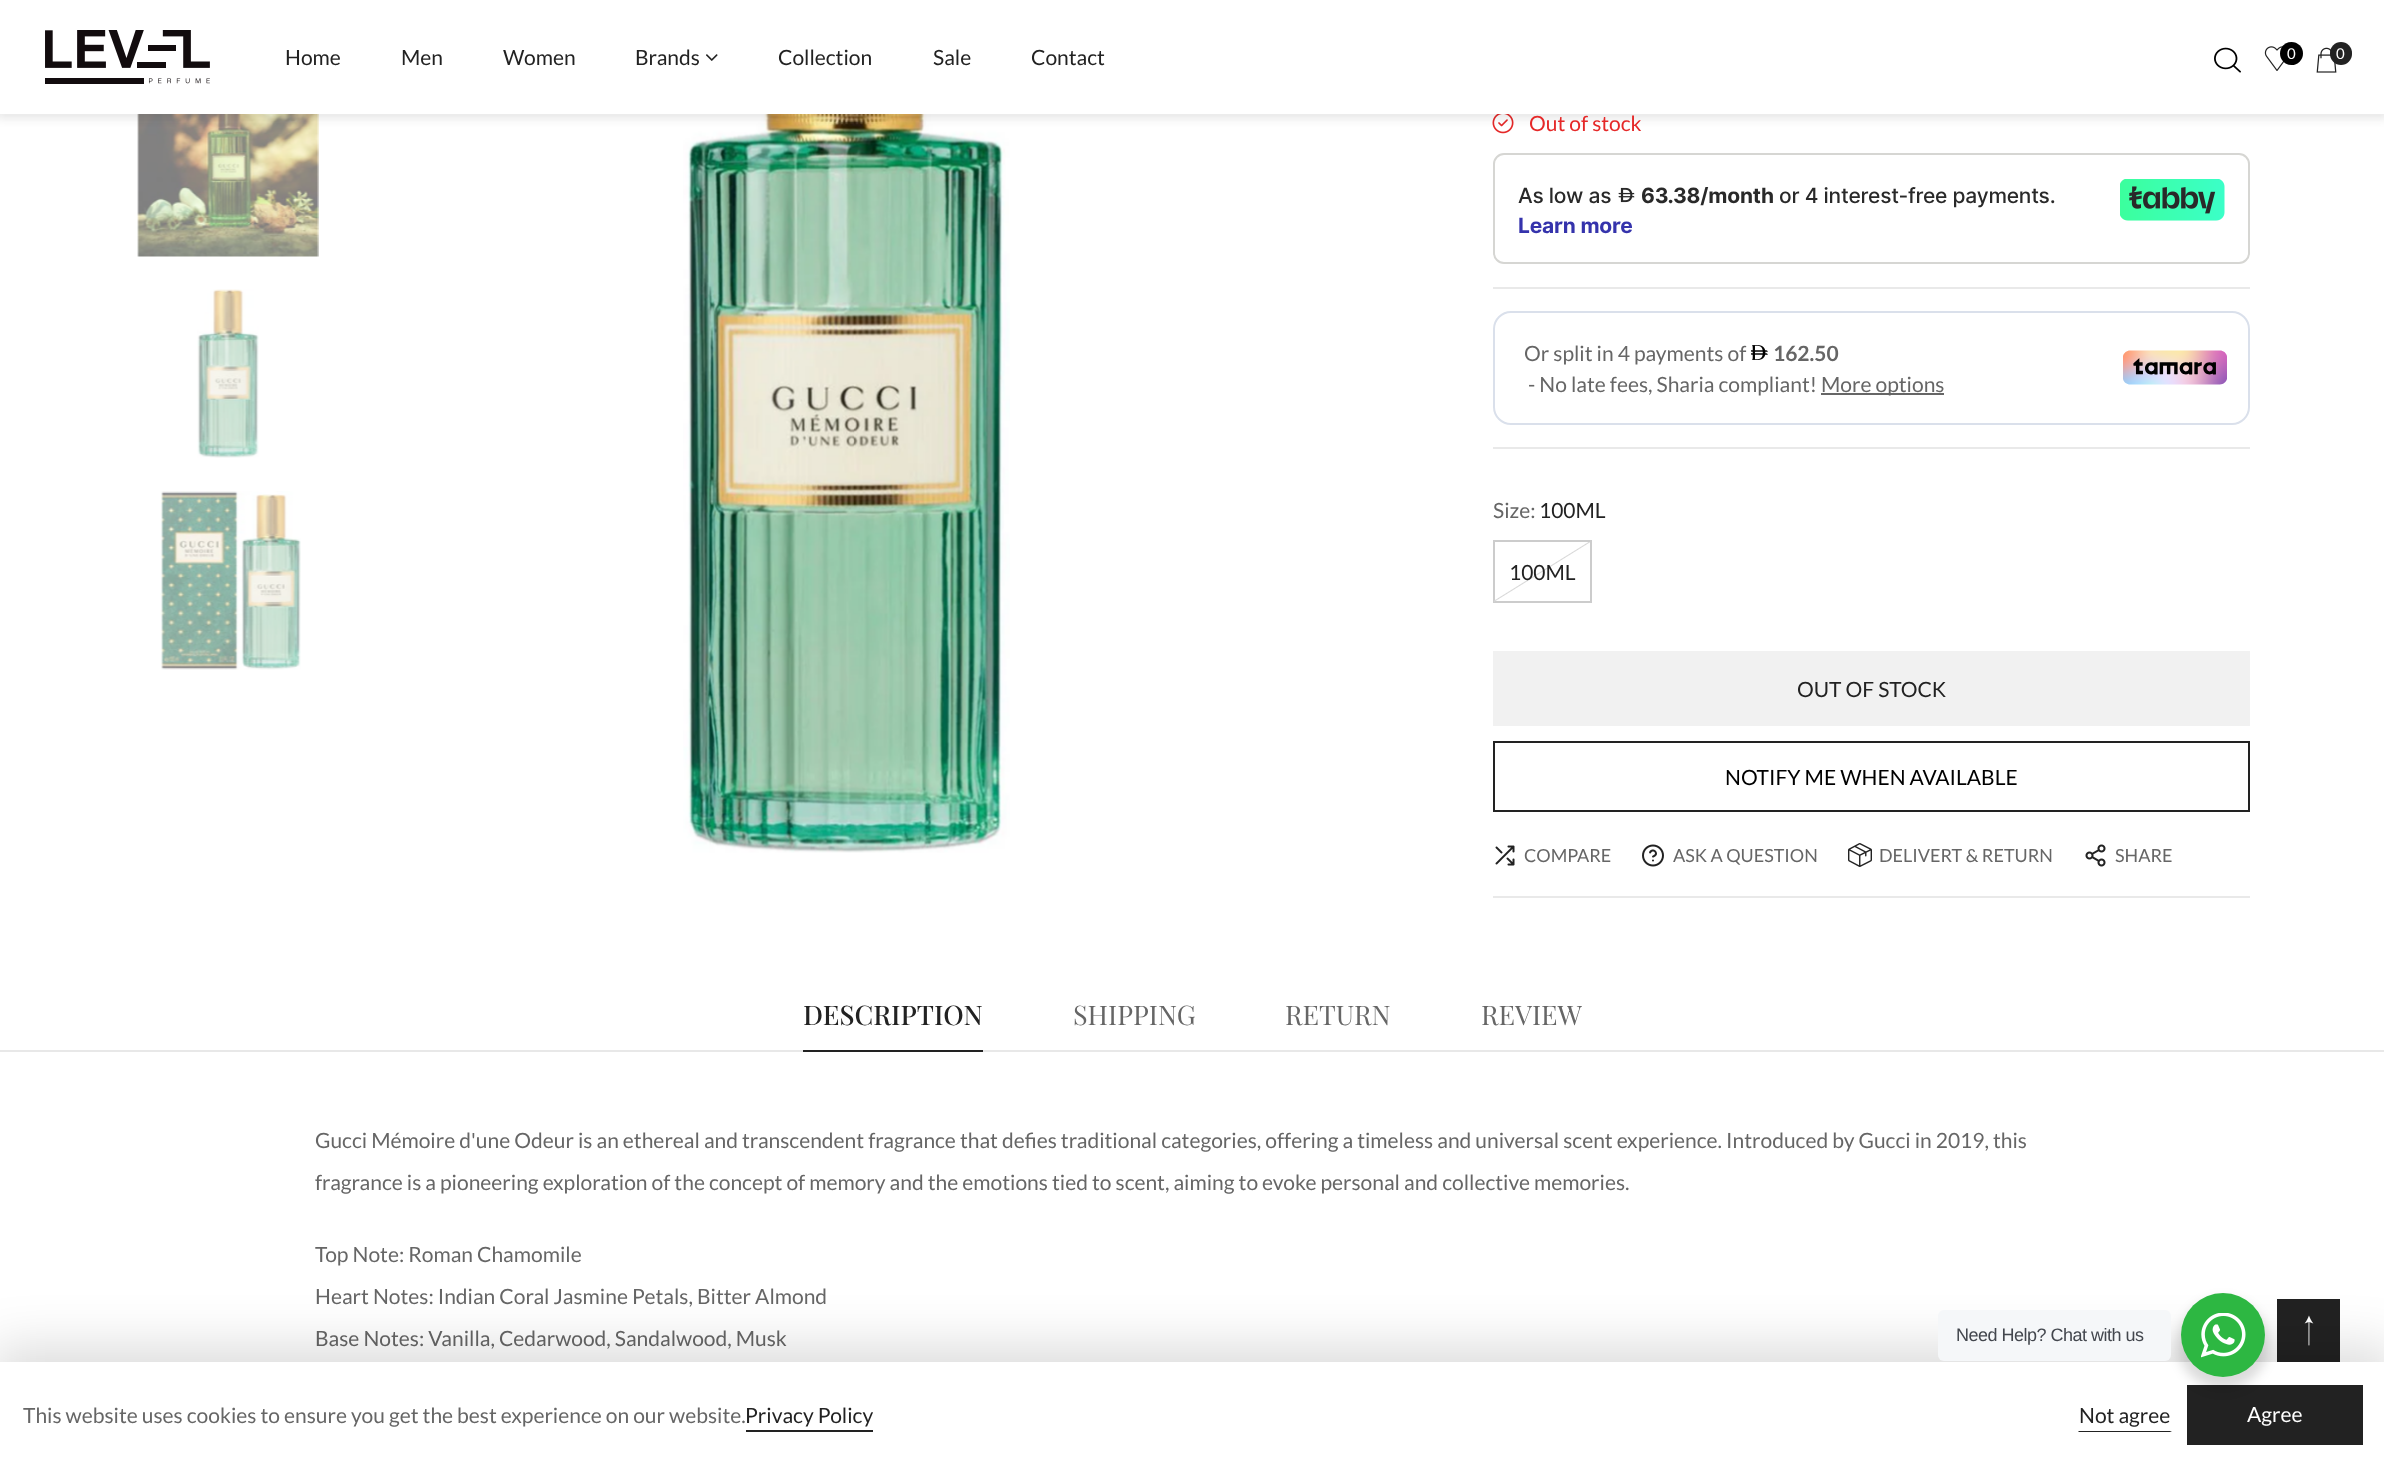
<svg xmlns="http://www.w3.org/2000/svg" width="2384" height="1466">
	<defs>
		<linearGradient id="g1" gradientUnits="userSpaceOnUse" x1="1515" y1="528" x2="1569" y2="615"><stop offset="0.49" stop-color="#D7D7D7" stop-opacity="0" /><stop offset="0.5" stop-color="#D7D7D7" /><stop offset="0.51" stop-color="#D7D7D7" stop-opacity="0" /></linearGradient>
	</defs>
	<rect width="100%" height="100%" fill="#FFFFFF" />
	<image x="137" y="114" width="182" height="143" href="assets/img6.png" />
	<image x="683" y="114" width="327" height="739" href="assets/img9.png" />
	<image x="1492" y="114" width="22" height="20" href="assets/img10.png" />
	<rect x="-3" y="-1" width="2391" height="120" fill="#222222" fill-opacity="0.1" filter="blur(4px)" />
	<rect x="0" y="0" width="2384" height="114" fill="#FFFFFF" />
	<image x="45" y="30" width="165" height="54" href="assets/img1.png" />
	<g font-family="Lato" font-size="21" fill="#222222">
		<text x="285" y="65">Home</text>
		<text x="401" y="65">Men</text>
		<text x="503" y="65">Women</text>
		<text x="635" y="65">Brands</text>
	</g>
	<image x="706" y="54" width="12" height="7" href="assets/img2.png" />
	<g font-family="Lato" font-size="21" fill="#222222">
		<text x="778" y="65">Collection</text>
		<text x="933" y="65">Sale</text>
		<text x="1031" y="65">Contact</text>
	</g>
	<image x="2214" y="47" width="27" height="26" href="assets/img3.png" />
	<image x="2264" y="46" width="20" height="25" href="assets/img4.png" />
	<circle cx="2291.5" cy="53.5" r="11.5" fill="#000000" />
	<text x="2287" y="59" font-family="Lato" font-size="15" fill="#FFFFFF">0</text>
	<image x="2316" y="47" width="21" height="26" href="assets/img5.png" />
	<rect x="2330" y="42" width="22" height="23" rx="11" fill="#222222" />
	<text x="2336" y="59" font-family="Lato" font-size="15" fill="#FFFFFF">0</text>
	<image x="197" y="289" width="62" height="169" href="assets/img7.png" />
	<image x="160" y="491" width="141" height="179" href="assets/img8.png" />
	<text x="1529" y="131" font-family="Lato" font-size="21" fill="#E52828">Out of stock</text>
	<rect x="1494" y="154" width="755" height="109" rx="10" fill="none" stroke="#D6D6D3" stroke-width="2" />
	<text x="1518" y="203" font-family="Inter" font-size="21" font-weight="500" letter-spacing="-0.2" fill="#292929">As low as</text>
	<image x="1618" y="187" width="17" height="16" href="assets/img11.png" />
	<text x="1641" y="203" font-family="Inter" font-size="21" font-weight="700" letter-spacing="-0.2" fill="#292929">63.38/month</text>
	<text x="1779" y="203" font-family="Inter" font-size="21" font-weight="500" letter-spacing="-0.2" fill="#292929">or 4 interest-free payments.</text>
	<text x="1518" y="233" font-family="Inter" font-size="21" font-weight="700" letter-spacing="-0.2" fill="#3533AC">Learn more</text>
	<image x="2120" y="179" width="105" height="42" href="assets/img12.png" />
	<rect x="1493" y="287" width="757" height="2" fill="#E9E9E9" />
	<rect x="1494" y="312" width="755" height="112" rx="17" fill="none" stroke="#DAE0EB" stroke-width="2" />
	<text x="1524" y="361" font-family="Lato" font-size="21" fill="#666666">Or split in 4 payments of</text>
	<image x="1751" y="345" width="17" height="15" href="assets/img13.png" />
	<text x="1773" y="361" font-family="Lato" font-size="21" font-weight="700" fill="#666666">162.50</text>
	<text x="1528" y="392" font-family="Lato" font-size="21" fill="#666666">- No late fees, Sharia compliant!</text>
	<rect x="1821" y="393" width="123" height="2" fill="#666666" />
	<text x="1821" y="392" font-family="Lato" font-size="21" fill="#666666">More options</text>
	<image x="2123" y="350" width="104" height="35" href="assets/img14.png" />
	<rect x="1493" y="447" width="757" height="2" fill="#E9E9E9" />
	<text x="1493" y="518" font-family="Lato" font-size="21" fill="#666666">Size:</text>
	<text x="1539" y="518" font-family="Lato" font-size="21" fill="#222222">100ML</text>
	<rect x="1494" y="541" width="97" height="61" fill="none" stroke="#CCCCCC" stroke-width="2" />
	<rect x="1494" y="542" width="96" height="60" fill="url(#g1)" />
	<text x="1509" y="580" font-family="Lato" font-size="21" fill="#222222">100ML</text>
	<rect x="1493" y="651" width="757" height="75" fill="#F1F1F1" />
	<text x="1797" y="697" font-family="Lato" font-size="21" fill="#222222">OUT OF STOCK</text>
	<rect x="1494" y="742" width="755" height="69" fill="none" stroke="#222222" stroke-width="2" />
	<text x="1725" y="785" font-family="Lato" font-size="21" fill="#000000">NOTIFY ME WHEN AVAILABLE</text>
	<image x="1495" y="845" width="20" height="21" href="assets/img15.png" />
	<text x="1524" y="862" font-family="Lato" font-size="18" fill="#666666">COMPARE</text>
	<image x="1642" y="844" width="22" height="23" href="assets/img16.png" />
	<text x="1673" y="862" font-family="Lato" font-size="18" fill="#666666">ASK A QUESTION</text>
	<image x="1848" y="843" width="24" height="24" href="assets/img17.png" />
	<text x="1879" y="862" font-family="Lato" font-size="18" fill="#666666">DELIVERT &amp; RETURN</text>
	<image x="2085" y="844" width="21" height="23" href="assets/img18.png" />
	<text x="2115" y="862" font-family="Lato" font-size="18" fill="#666666">SHARE</text>
	<rect x="1493" y="896" width="757" height="2" fill="#E9E9E9" />
	<rect x="0" y="1050" width="2384" height="2" fill="#E8E8E8" />
	<text x="803" y="1025" font-family="Playfair Display" font-size="27" font-weight="500" fill="#222222">DESCRIPTION</text>
	<rect x="803" y="1050" width="180" height="2" fill="#222222" />
	<g font-family="Playfair Display" font-size="27" fill="#666666">
		<text x="1073" y="1025">SHIPPING</text>
		<text x="1285" y="1025">RETURN</text>
		<text x="1481" y="1025">REVIEW</text>
	</g>
	<g font-family="Lato" font-size="21" fill="#666666">
		<text x="315" y="1148">Gucci Mémoire d'une Odeur is an ethereal and transcendent fragrance that defies traditional categories, offering a timeless and universal scent experience. Introduced by Gucci in 2019, this</text>
		<text x="315" y="1190">fragrance is a pioneering exploration of the concept of memory and the emotions tied to scent, aiming to evoke personal and collective memories.</text>
		<text x="315" y="1262">Top Note: Roman Chamomile</text>
		<text x="315" y="1304">Heart Notes: Indian Coral Jasmine Petals, Bitter Almond</text>
		<text x="315" y="1346">Base Notes: Vanilla, Cedarwood, Sandalwood, Musk</text>
	</g>
	<rect x="2277" y="1299" width="63" height="63" fill="#222222" />
	<image x="2304" y="1315" width="10" height="31" href="assets/img19.png" />
	<rect x="-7" y="1347" width="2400" height="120" fill="#000000" fill-opacity="0.14" filter="blur(26px)" />
	<rect x="0" y="1362" width="2384" height="104" fill="#FFFFFF" />
	<rect x="2187" y="1385" width="176" height="60" fill="#222222" />
	<rect x="2178" y="1299" width="90" height="90" rx="45" fill="#000000" fill-opacity="0.14" filter="blur(6px)" />
	<rect x="1938" y="1310" width="233" height="51" rx="6" fill="#F5F7F9" />
	<text x="1956" y="1341" font-family="Liberation Sans" font-size="18" letter-spacing="-0.5" fill="#43474E">Need Help? Chat with us</text>
	<circle cx="2223" cy="1335" r="42" fill="#2DB742" />
	<image x="2201" y="1313" width="45" height="45" href="assets/img20.png" />
	<text x="23" y="1423" font-family="Lato" font-size="21" fill="#666666">This website uses cookies to ensure you get the best experience on our website.</text>
	<rect x="746" y="1430" width="127" height="2" fill="#222222" />
	<text x="745" y="1423" font-family="Lato" font-size="21" fill="#222222">Privacy Policy</text>
	<path d="M2172 1432H2078L2079 1431H2170Z" fill="#222222" />
	<text x="2079" y="1423" font-family="Lato" font-size="21" fill="#222222">Not agree</text>
	<text x="2247" y="1422" font-family="Lato" font-size="21" fill="#FFFFFF">Agree</text>
</svg>
